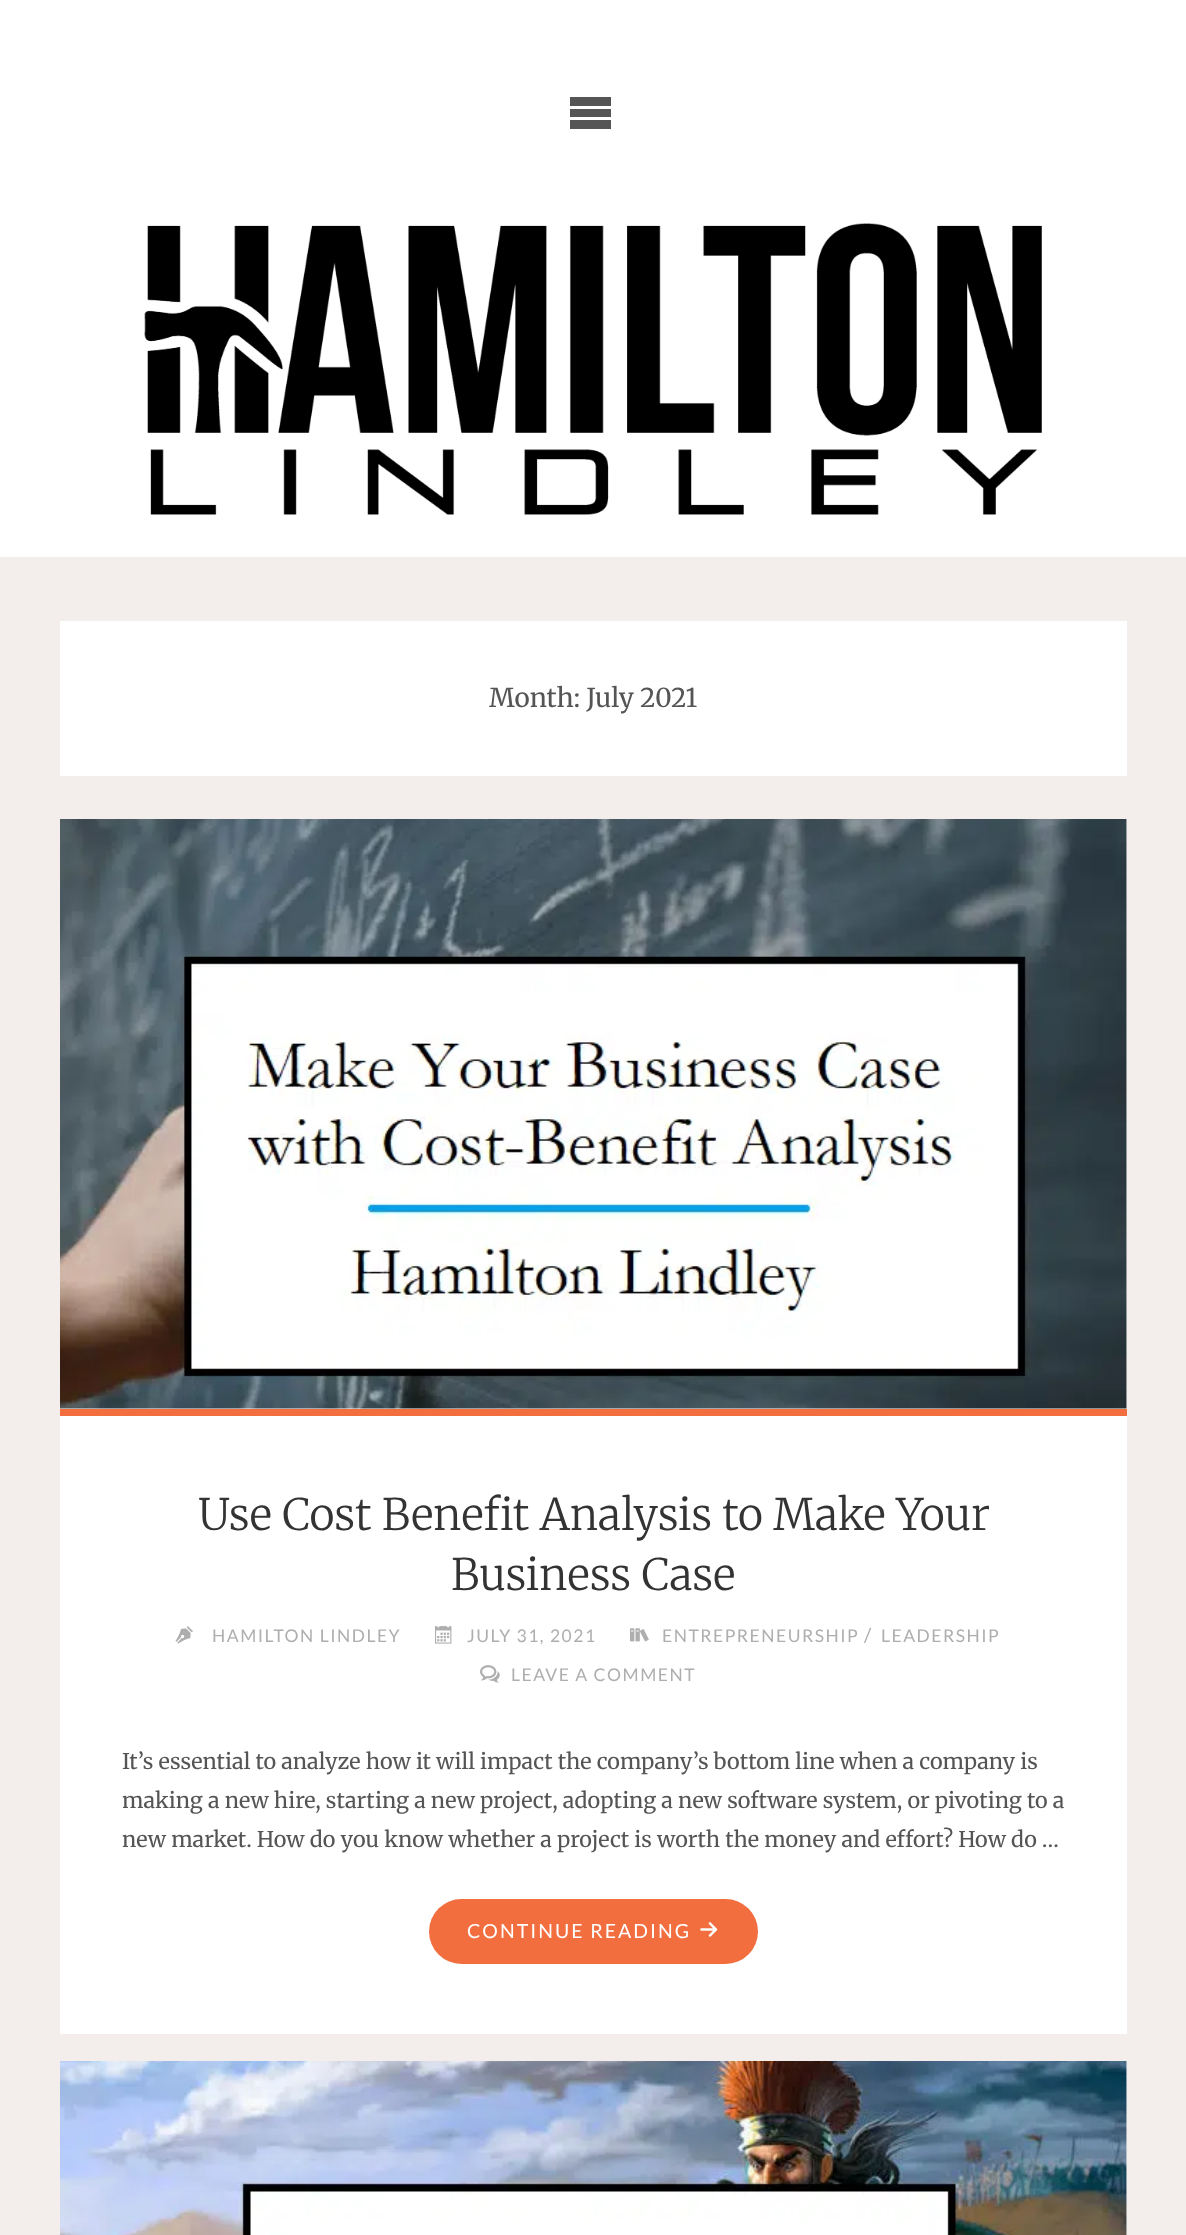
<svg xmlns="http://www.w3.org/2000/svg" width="1186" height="2235">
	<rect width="100%" height="100%" fill="#F3EEEB" />
	<rect x="0" y="0" width="1186" height="557" fill="#FFFFFF" />
	<path d="M570 97H611V106H570ZM570 109H611V117H570ZM570 120H611V129H570Z" fill="#555555" />
	<image x="144" y="223" width="898" height="292" href="assets/img1.png" />
	<rect x="60" y="621" width="1067" height="155" fill="#FFFFFF" />
	<text x="489" y="707" font-family="Merriweather" font-size="26" fill="#555555">Month: July 2021</text>
	<rect x="60" y="819" width="1067" height="1215" fill="#FFFFFF" />
	<image x="60" y="819" width="1067" height="590" href="assets/img2.png" />
	<rect x="60" y="1409" width="1067" height="7" fill="#F26E3F" />
	<g font-family="Merriweather" font-size="43.25" font-weight="300" fill="#333333">
		<text x="198" y="1530">Use Cost Benefit Analysis to Make Your</text>
		<text x="451" y="1590">Business Case</text>
	</g>
	<image x="175" y="1626" width="18" height="18" href="assets/img3.png" />
	<text x="212" y="1642" font-family="Lato" font-size="17.5" letter-spacing="1.5" fill="#AEAEAE">HAMILTON LINDLEY</text>
	<image x="435" y="1626" width="17" height="18" href="assets/img4.png" />
	<text x="467" y="1642" font-family="Lato" font-size="17.5" letter-spacing="1.5" fill="#AEAEAE">JULY 31, 2021</text>
	<image x="630" y="1628" width="19" height="14" href="assets/img5.png" />
	<text x="662" y="1642" font-family="Lato" font-size="17.5" letter-spacing="1.5" fill="#AEAEAE">ENTREPRENEURSHIP</text>
	<text x="864" y="1642" font-family="Lato" font-size="19.5" letter-spacing="1.5" fill="#AEAEAE">/</text>
	<text x="881" y="1642" font-family="Lato" font-size="17.5" letter-spacing="1.5" fill="#AEAEAE">LEADERSHIP</text>
	<image x="480" y="1665" width="20" height="18" href="assets/img6.png" />
	<text x="511" y="1681" font-family="Lato" font-size="17.5" letter-spacing="1.5" fill="#AEAEAE">LEAVE A COMMENT</text>
	<g font-family="Merriweather" font-size="21.6" fill="#555555">
		<text x="122" y="1769">It’s essential to analyze how it will impact the company’s bottom line when a company is</text>
		<text x="122" y="1808">making a new hire, starting a new project, adopting a new software system, or pivoting to a</text>
		<text x="122" y="1847">new market. How do you know whether a project is worth the money and effort? How do …</text>
	</g>
	<rect x="429" y="1899" width="329" height="65" rx="32.5" fill="#F26E3F" />
	<text x="467" y="1938" font-family="Lato" font-size="19.5" letter-spacing="2" fill="#FFFFFF">CONTINUE READING</text>
	<image x="700" y="1922" width="18" height="15" href="assets/img7.png" />
	<rect x="1126" y="2061" width="1" height="174" fill="#FFFFFF" />
	<image x="60" y="2061" width="1067" height="174" href="assets/img8.png" />
</svg>
